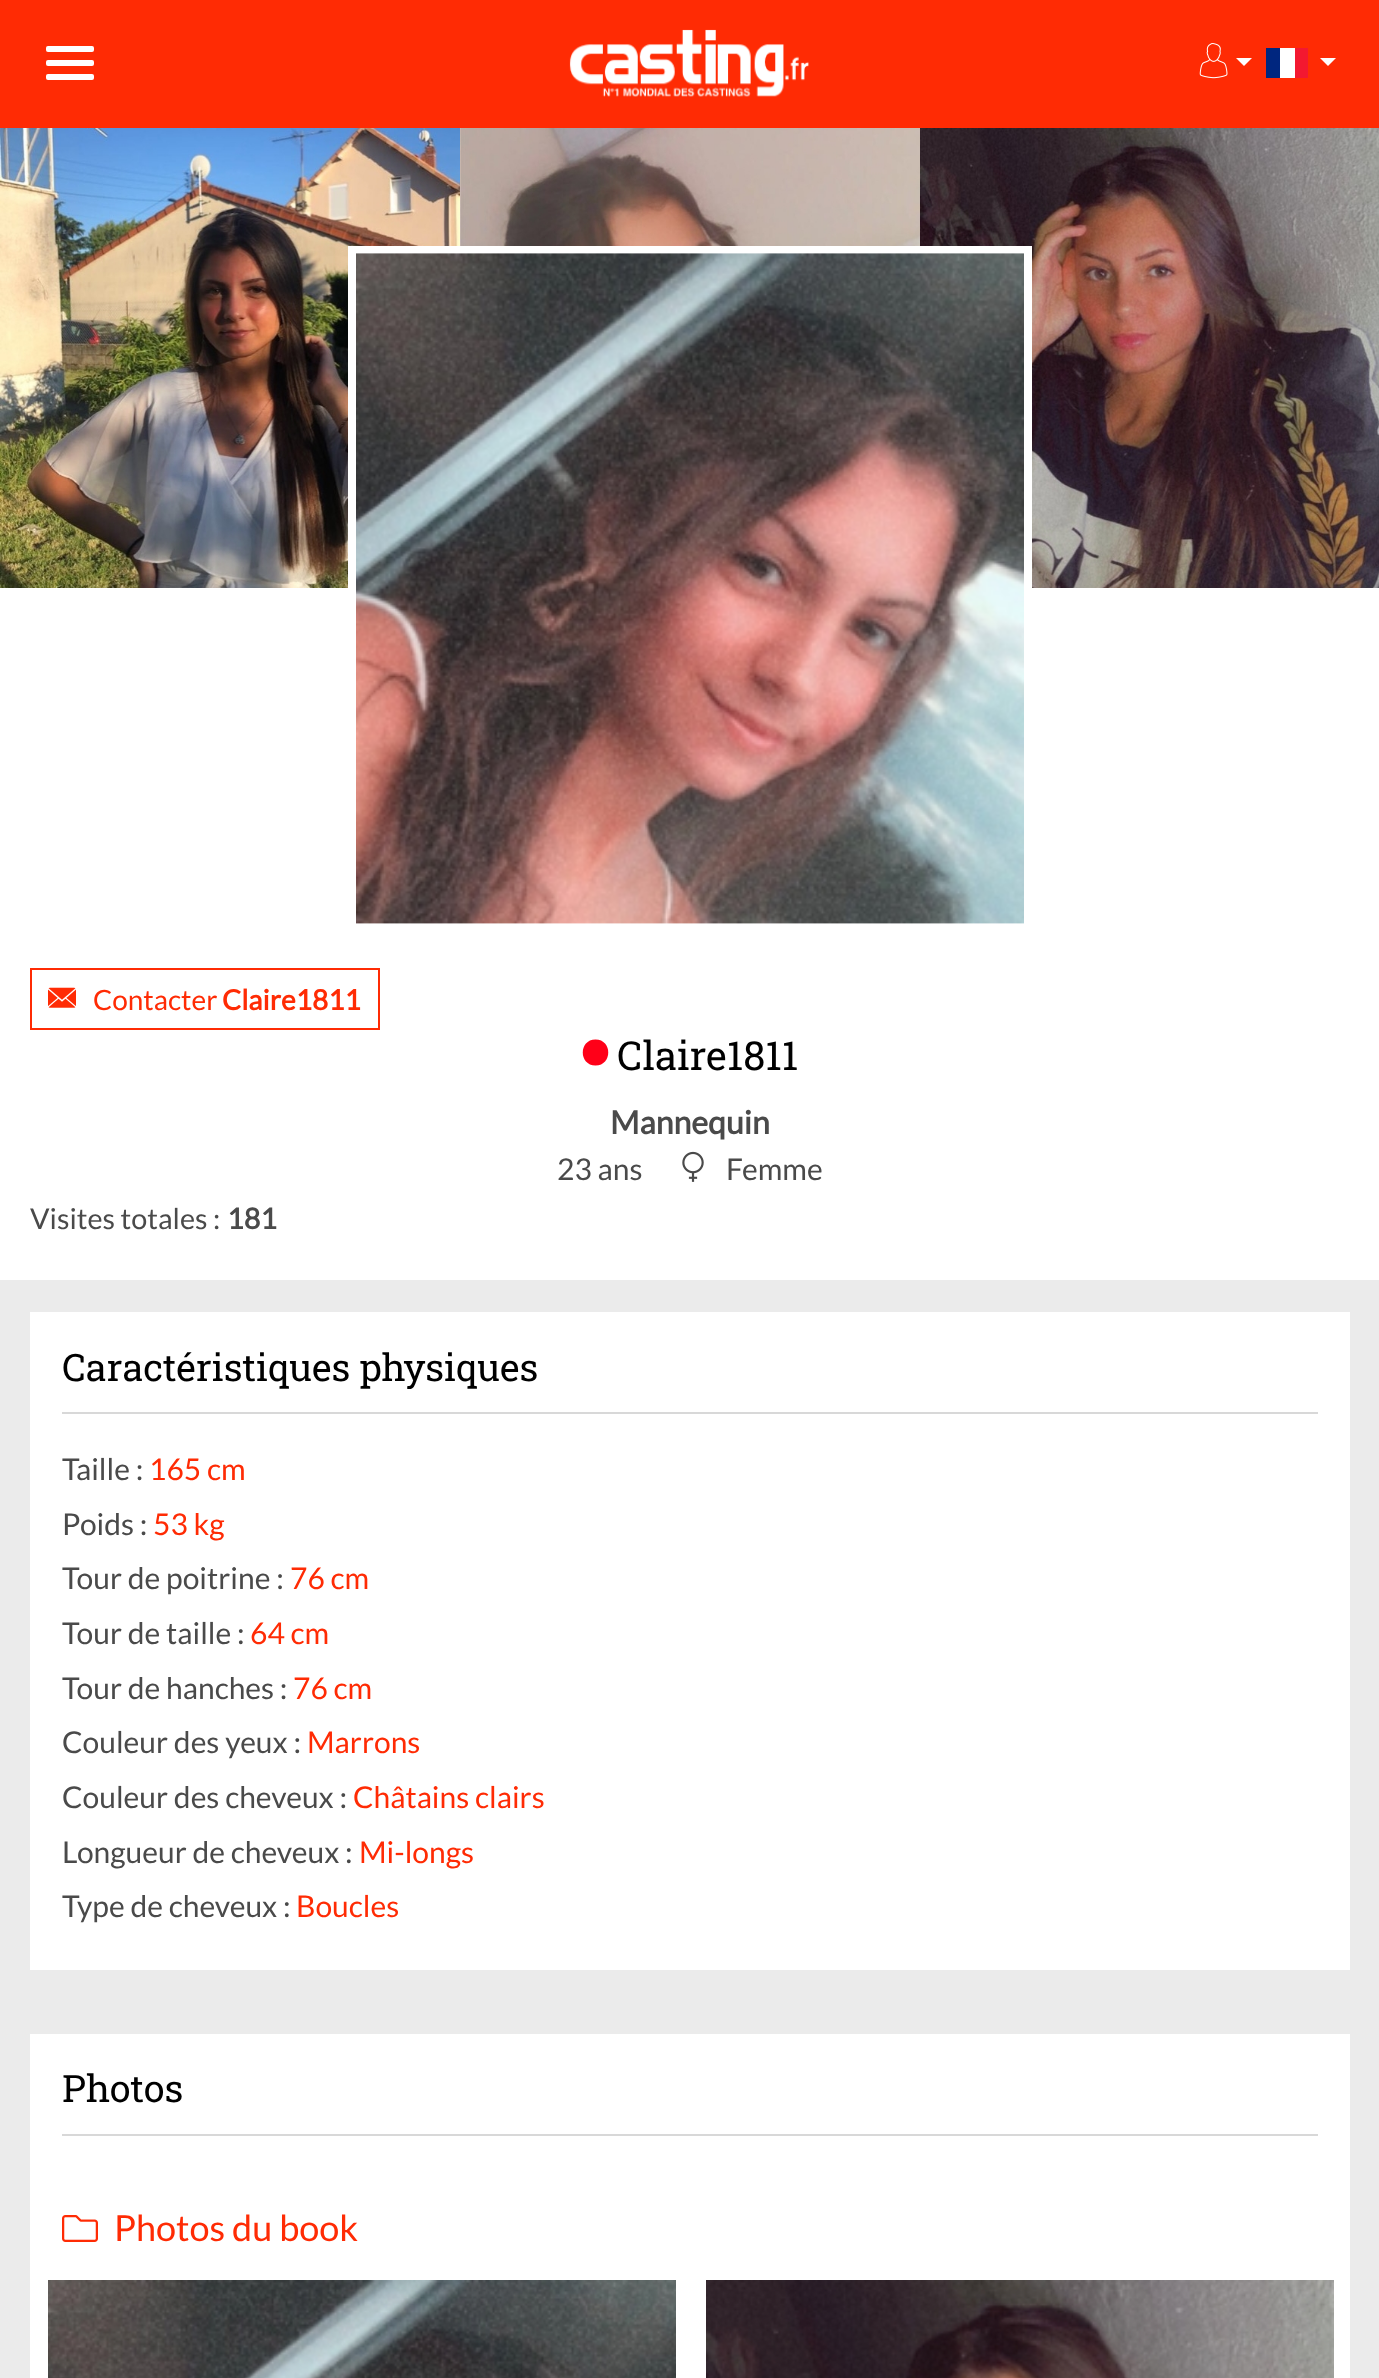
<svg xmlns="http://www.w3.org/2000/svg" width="1379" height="2378">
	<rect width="100%" height="100%" fill="#EBEBEB" />
	<rect x="0" y="0" width="1379" height="128" fill="#FF2B04" />
	<rect x="46" y="46" width="48" height="6" rx="2" fill="#FFFFFF" />
	<rect x="46" y="60" width="48" height="6" rx="2" fill="#FFFFFF" />
	<rect x="46" y="74" width="48" height="6" rx="2" fill="#FFFFFF" />
	<image x="569" y="29" width="240" height="68" href="assets/img1.png" />
	<image x="1199" y="43" width="29" height="36" href="assets/img2.png" />
	<path d="M1236 58H1252L1244 66Z" fill="#FFFFFF" />
	<rect x="1280" y="48" width="15" height="30" fill="#FFFFFF" />
	<rect x="1266" y="48" width="14" height="30" fill="#00267F" />
	<rect x="1295" y="48" width="13" height="30" fill="#F31830" />
	<path d="M1320 58H1336L1328 66Z" fill="#FFFFFF" />
	<rect x="0" y="588" width="1379" height="692" fill="#FFFFFF" />
	<image x="0" y="128" width="460" height="460" href="assets/img3.png" />
	<image x="460" y="128" width="460" height="118" href="assets/img4.png" />
	<image x="920" y="128" width="459" height="460" href="assets/img5.png" />
	<rect x="352" y="250" width="676" height="678" fill="none" stroke="#FFFFFF" stroke-width="8" />
	<image x="356" y="253" width="668" height="671" href="assets/img6.png" />
	<rect x="31" y="969" width="348" height="60" fill="none" stroke="#FF2B04" stroke-width="2" />
	<image x="48" y="987" width="28" height="21" href="assets/img7.png" />
	<text x="93" y="1010" font-family="Lato" font-size="28" fill="#FF2B04">Contacter</text>
	<text x="222" y="1010" font-family="Lato" font-size="28" font-weight="700" fill="#FF2B04">Claire1811</text>
	<path d="M595.5 1039.5C578.5 1039.5 578.5 1065.5 595.5 1065.5C612.5 1065.5 612.5 1039.5 595.5 1039.5Z" fill="#FF0018" />
	<text x="617" y="1070" font-family="Roboto Slab" font-size="40" fill="#000000">Claire1811</text>
	<text x="610" y="1134" font-family="Lato" font-size="32" font-weight="700" fill="#4A4A4A">Mannequin</text>
	<text x="557" y="1180" font-family="Lato" font-size="30" fill="#4A4A4A">23 ans</text>
	<image x="682" y="1151" width="22" height="31" href="assets/img8.png" />
	<text x="726" y="1180" font-family="Lato" font-size="30" fill="#4A4A4A">Femme</text>
	<text x="30" y="1229" font-family="Lato" font-size="28.75" fill="#4A4A4A">Visites totales :</text>
	<text x="227" y="1229" font-family="Lato" font-size="28.75" font-weight="700" fill="#4A4A4A">181</text>
	<rect x="30" y="1312" width="1320" height="658" fill="#FFFFFF" />
	<text x="62" y="1381" font-family="Roboto Slab" font-size="37.75" fill="#000000">Caractéristiques physiques</text>
	<rect x="62" y="1412" width="1256" height="2" fill="#D8D8D8" />
	<text x="62" y="1480" font-family="Lato" font-size="30" fill="#4A4A4A">Taille :</text>
	<text x="149" y="1480" font-family="Lato" font-size="30" fill="#FF2B04">165 cm</text>
	<text x="62" y="1535" font-family="Lato" font-size="30" fill="#4A4A4A">Poids :</text>
	<text x="153" y="1535" font-family="Lato" font-size="30" fill="#FF2B04">53 kg</text>
	<text x="62" y="1589" font-family="Lato" font-size="30" fill="#4A4A4A">Tour de poitrine :</text>
	<text x="290" y="1589" font-family="Lato" font-size="30" fill="#FF2B04">76 cm</text>
	<text x="62" y="1644" font-family="Lato" font-size="30" fill="#4A4A4A">Tour de taille :</text>
	<text x="250" y="1644" font-family="Lato" font-size="30" fill="#FF2B04">64 cm</text>
	<text x="62" y="1699" font-family="Lato" font-size="30" fill="#4A4A4A">Tour de hanches :</text>
	<text x="293" y="1699" font-family="Lato" font-size="30" fill="#FF2B04">76 cm</text>
	<text x="62" y="1753" font-family="Lato" font-size="30" fill="#4A4A4A">Couleur des yeux :</text>
	<text x="307" y="1753" font-family="Lato" font-size="30" fill="#FF2B04">Marrons</text>
	<text x="62" y="1808" font-family="Lato" font-size="30" fill="#4A4A4A">Couleur des cheveux :</text>
	<text x="353" y="1808" font-family="Lato" font-size="30" fill="#FF2B04">Châtains clairs</text>
	<text x="62" y="1863" font-family="Lato" font-size="30" fill="#4A4A4A">Longueur de cheveux :</text>
	<text x="359" y="1863" font-family="Lato" font-size="30" fill="#FF2B04">Mi-longs</text>
	<text x="62" y="1917" font-family="Lato" font-size="30" fill="#4A4A4A">Type de cheveux :</text>
	<text x="296" y="1917" font-family="Lato" font-size="30" fill="#FF2B04">Boucles</text>
	<rect x="30" y="2034" width="1320" height="344" fill="#FFFFFF" />
	<text x="62" y="2102" font-family="Roboto Slab" font-size="37.75" fill="#000000">Photos</text>
	<rect x="62" y="2134" width="1256" height="2" fill="#D8D8D8" />
	<image x="62" y="2215" width="36" height="27" href="assets/img9.png" />
	<text x="114" y="2241" font-family="Lato" font-size="36" fill="#FF2B04">Photos du book</text>
	<image x="48" y="2280" width="628" height="98" href="assets/img10.png" />
	<image x="706" y="2280" width="628" height="98" href="assets/img11.png" />
</svg>
